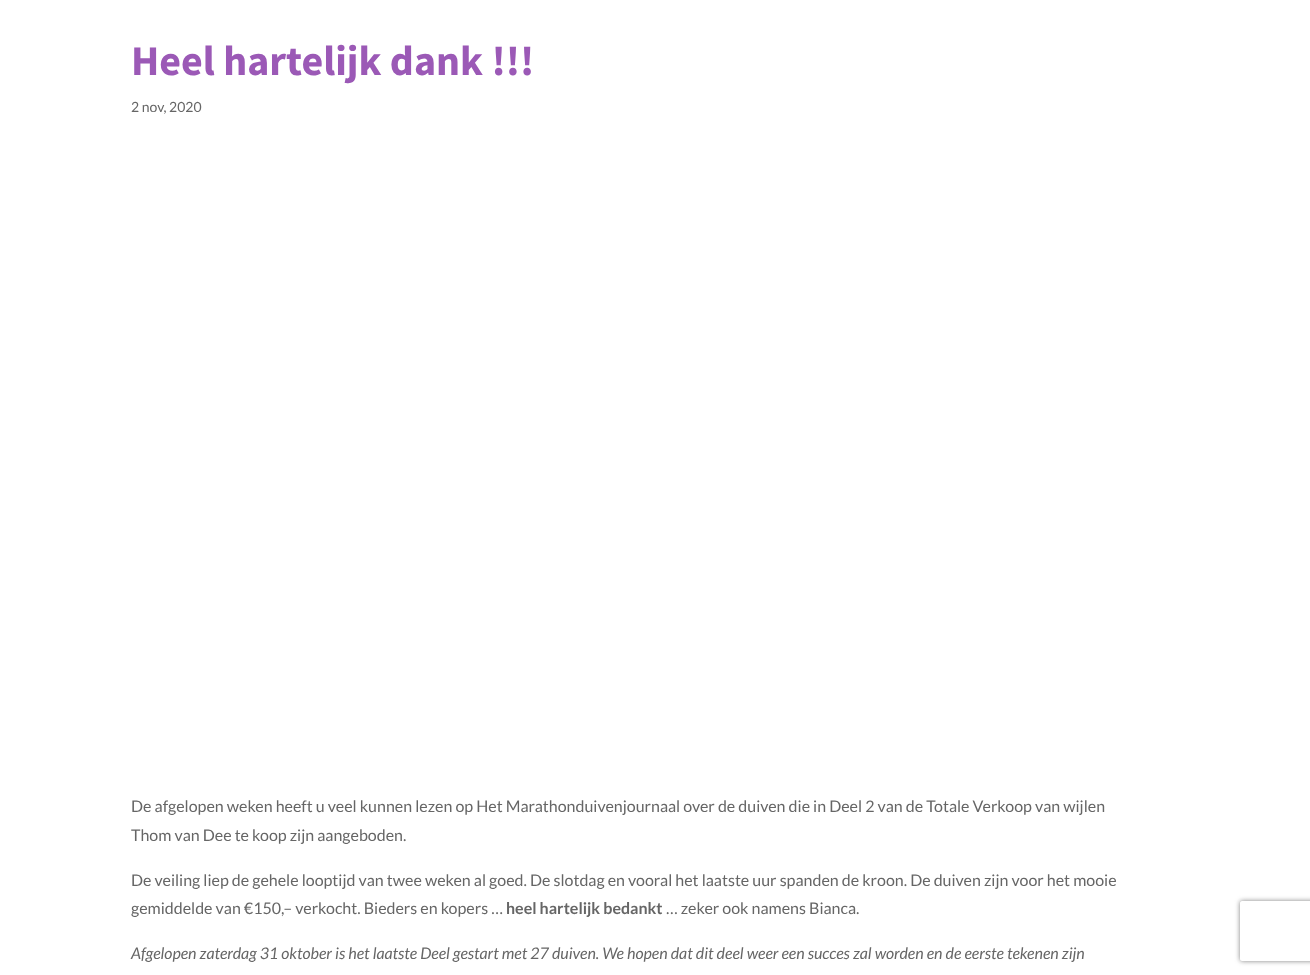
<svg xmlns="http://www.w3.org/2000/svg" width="1310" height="975">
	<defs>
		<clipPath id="clip1"><path d="M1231 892H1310V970H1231ZM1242 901H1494C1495 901 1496 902 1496 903V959C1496 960 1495 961 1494 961H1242C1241 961 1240 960 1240 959V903C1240 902 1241 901 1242 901Z" clip-rule="evenodd" /></clipPath>
	</defs>
	<rect width="100%" height="100%" fill="#FFFFFF" />
	<text x="131" y="75" font-family="Source Sans Pro" font-size="42" font-weight="700" fill="#9B59B6">Heel hartelijk dank !!!</text>
	<text x="131" y="112" font-family="Lato" font-size="14" fill="#666666">2 nov, 2020</text>
	<g font-family="Lato" font-size="16" fill="#666666">
		<text x="131" y="812">De afgelopen weken heeft u veel kunnen lezen op Het Marathonduivenjournaal over de duiven die in Deel 2 van de Totale Verkoop van wijlen</text>
		<text x="131" y="841">Thom van Dee te koop zijn aangeboden.</text>
		<text x="131" y="886">De veiling liep de gehele looptijd van twee weken al goed. De slotdag en vooral het laatste uur spanden de kroon. De duiven zijn voor het mooie</text>
		<text x="131" y="914">gemiddelde van €150,– verkocht. Bieders en kopers …</text>
	</g>
	<text x="506" y="914" font-family="Lato" font-size="16" font-weight="700" fill="#666666">heel hartelijk bedankt</text>
	<text x="666" y="914" font-family="Lato" font-size="16" fill="#666666">… zeker ook namens Bianca.</text>
	<text x="131" y="959" font-family="Lato" font-size="16" font-style="italic" fill="#666666">Afgelopen zaterdag 31 oktober is het laatste Deel gestart met 27 duiven. We hopen dat dit deel weer een succes zal worden en de eerste tekenen zijn</text>
	<g clip-path="url(#clip1)">
		<rect x="1240" y="901" width="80" height="60" rx="2" fill="#808080" filter="blur(2.5px)" />
	</g>
</svg>
